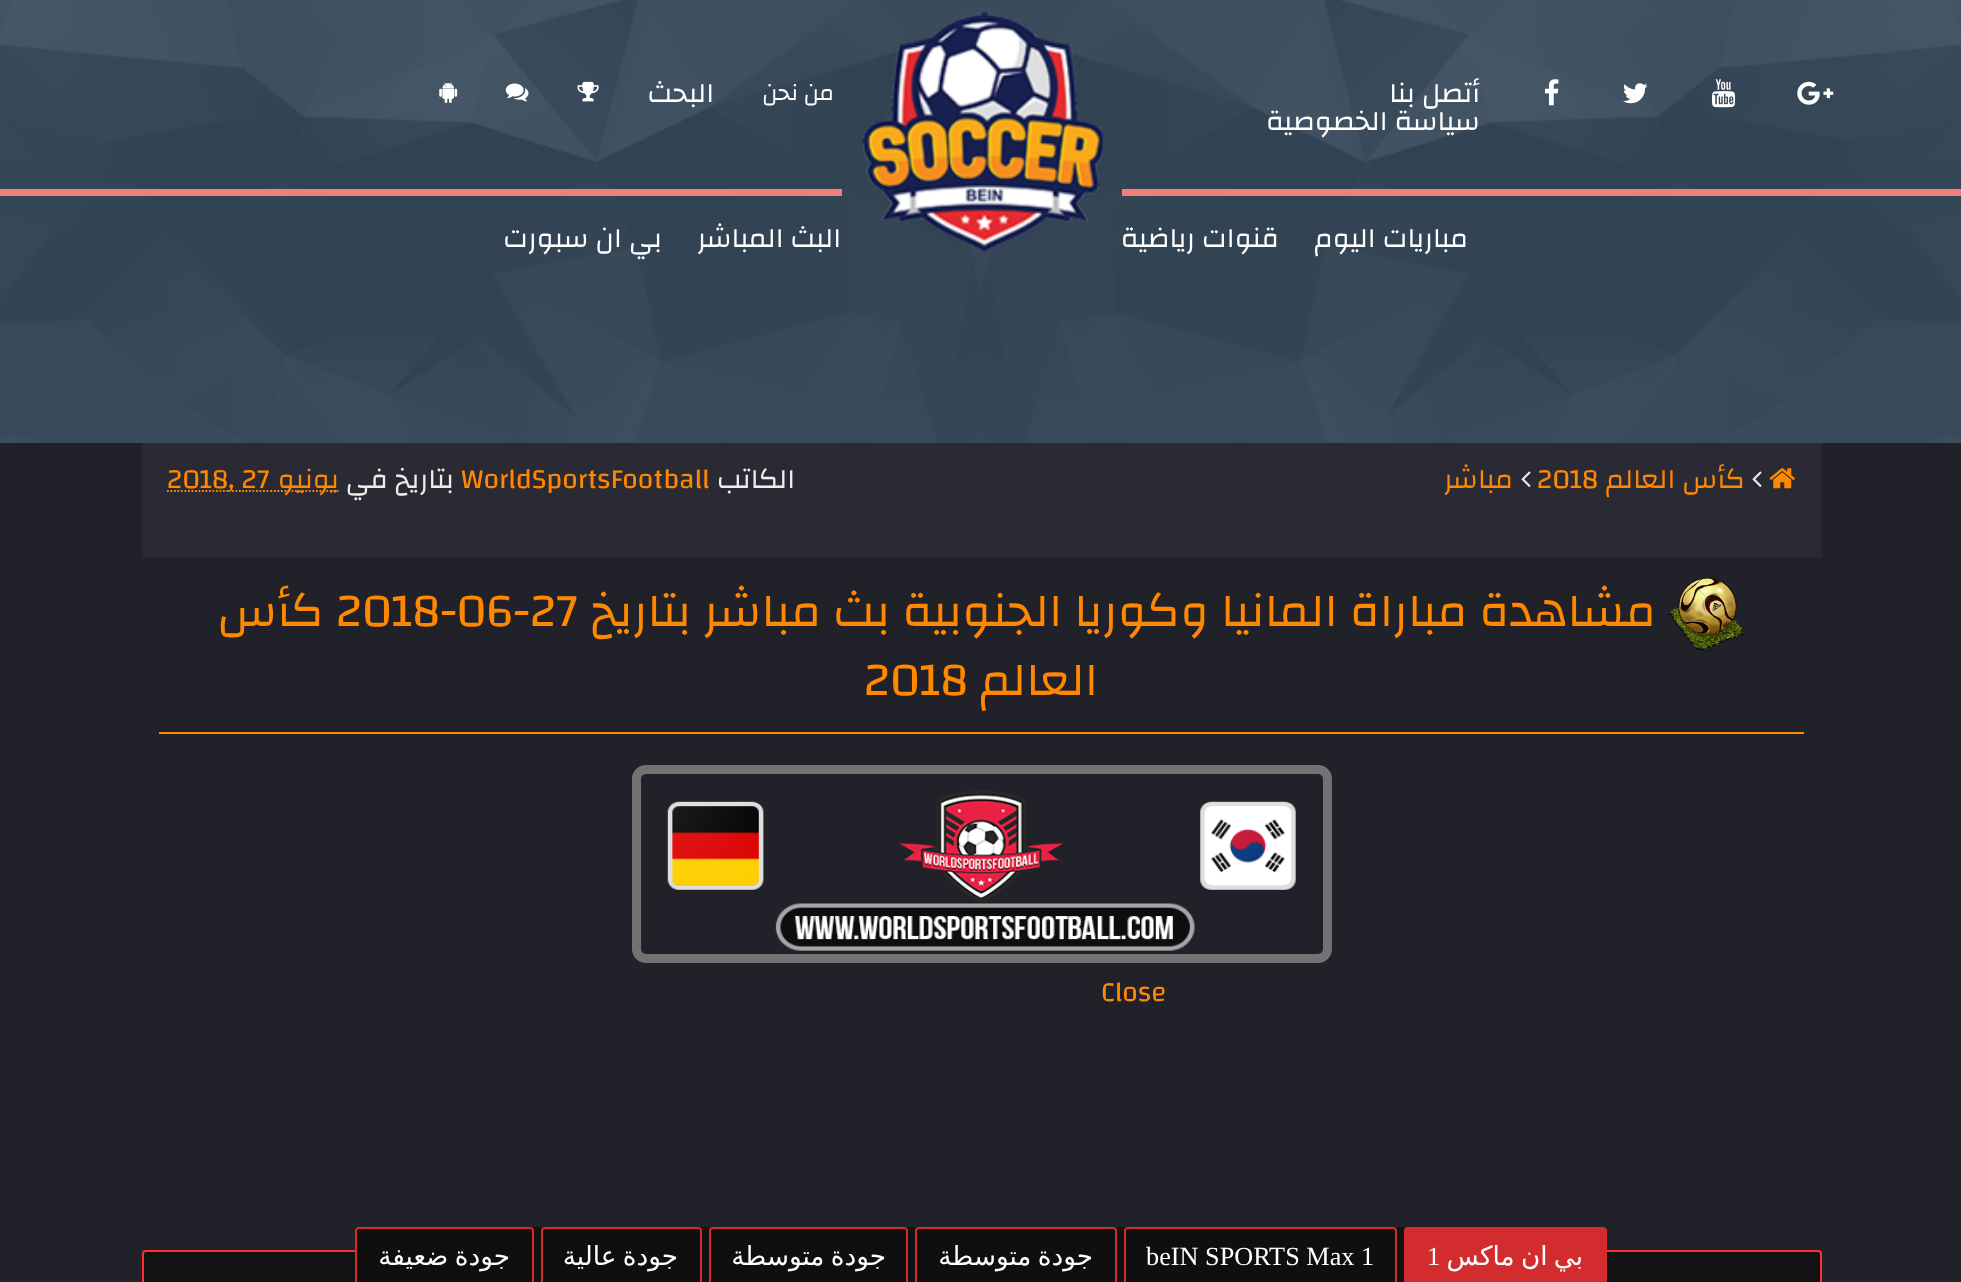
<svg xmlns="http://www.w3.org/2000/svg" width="1961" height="1282">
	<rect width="100%" height="100%" fill="#212129" />
	<rect x="0" y="0" width="1961" height="443" fill="#334657" />
	<image x="0" y="0" width="1961" height="443" href="assets/img1.png" />
	<image x="1797" y="81" width="37" height="24" href="assets/img2.png" />
	<image x="1711" y="79" width="25" height="29" href="assets/img3.png" />
	<image x="1623" y="83" width="25" height="21" href="assets/img4.png" />
	<image x="1545" y="79" width="14" height="27" href="assets/img5.png" />
	<g font-family="Changa" font-size="28" direction="rtl" fill="#FFFFFF">
		<text x="1480" y="102">أتصل بنا</text>
		<text x="1480" y="130">سياسة الخصوصية</text>
	</g>
	<text x="834" y="100" font-family="Changa" font-size="23" direction="rtl" fill="#FFFFFF">من نحن</text>
	<text x="714" y="102" font-family="Changa" font-size="28" direction="rtl" fill="#FFFFFF">البحث</text>
	<image x="577" y="81" width="22" height="21" href="assets/img6.png" />
	<image x="505" y="83" width="24" height="19" href="assets/img7.png" />
	<image x="439" y="82" width="19" height="21" href="assets/img8.png" />
	<image x="862" y="12" width="241" height="241" href="assets/img9.png" />
	<rect x="1122" y="189" width="839" height="7" fill="#EE8278" />
	<g font-family="Changa" font-size="28" direction="rtl" fill="#FFFFFF">
		<text x="1468" y="247">مباريات اليوم</text>
		<text x="1279" y="247">قنوات رياضية</text>
	</g>
	<rect x="0" y="189" width="842" height="7" fill="#EE8278" />
	<g font-family="Changa" font-size="28" direction="rtl" fill="#FFFFFF">
		<text x="841" y="247">البث المباشر</text>
		<text x="662" y="247">بي ان سبورت</text>
	</g>
	<rect x="142" y="443" width="1680" height="115" fill="#2A2A34" />
	<image x="1769" y="468" width="26" height="21" href="assets/img10.png" />
	<image x="1752" y="471" width="10" height="16" href="assets/img11.png" />
	<text x="1745" y="488" font-family="Changa" font-size="28" direction="rtl" fill="#FF8800">كأس العالم</text>
	<text x="1537" y="488" font-family="Changa" font-size="28" fill="#FF8800">2018</text>
	<image x="1521" y="471" width="10" height="16" href="assets/img11.png" />
	<text x="1513" y="488" font-family="Changa" font-size="28" direction="rtl" fill="#FF8800">مباشر</text>
	<text x="795" y="488" font-family="Changa" font-size="28" direction="rtl" fill="#EEEEEE">الكاتب</text>
	<text x="461" y="488" font-family="Changa" font-size="28" fill="#FF8800">WorldSportsFootball</text>
	<g font-family="Changa" font-size="28" direction="rtl" fill="#EFECE7">
		<text x="454" y="488">بتاريخ</text>
		<text x="388" y="488">في</text>
	</g>
	<path d="M242 491H270.5" fill="none" stroke="#FF8800" stroke-width="1.8" stroke-dasharray="1.75 1.75" />
	<path d="M270.5 491H338.5" fill="none" stroke="#FF8800" stroke-width="1.8" stroke-dasharray="1.75 1.75" />
	<text x="339" y="488" font-family="Changa" font-size="28" direction="rtl" fill="#FF8800">يونيو</text>
	<path d="M167 491H228.5" fill="none" stroke="#FF8800" stroke-width="1.8" stroke-dasharray="1.75 1.75" />
	<path d="M228.5 491H242" fill="none" stroke="#FF8800" stroke-width="1.8" stroke-dasharray="1.75 1.75" />
	<g font-family="Changa" font-size="28" fill="#FF8800">
		<text x="228" y="488">, 27</text>
		<text x="167" y="488">2018</text>
	</g>
	<rect x="159" y="732" width="1645" height="2" fill="#FF8800" />
	<image x="1668" y="577" width="76" height="76" href="assets/img12.png" />
	<text x="1656" y="626" font-family="Changa" font-size="47.6" direction="rtl" fill="#FF8800">مشاهدة مباراة المانيا وكوريا الجنوبية بث مباشر بتاريخ</text>
	<text x="336" y="626" font-family="Changa" font-size="47.6" fill="#FF8800">2018-06-27</text>
	<g font-family="Changa" font-size="47.6" direction="rtl" fill="#FF8800">
		<text x="324" y="626">كأس</text>
		<text x="1098" y="695">العالم</text>
	</g>
	<text x="864" y="695" font-family="Changa" font-size="47.6" fill="#FF8800">2018</text>
	<text x="1101" y="1001" font-family="Changa" font-size="28" fill="#FF8800">Close</text>
	<rect x="636.5" y="769.5" width="691" height="189" rx="9.5" fill="none" stroke="#727273" stroke-width="9" />
	<image x="667" y="790" width="629" height="161" href="assets/img13.png" />
	<rect x="143" y="1251" width="1678" height="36" rx="3" fill="#121212" stroke="#FF2E2E" stroke-width="2" />
	<rect x="355" y="1227" width="1252" height="25" fill="#121212" />
	<rect x="1405" y="1228" width="201" height="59" rx="3" fill="#D22C2E" stroke="#D22C2E" stroke-width="2" />
	<text x="1583" y="1265" word-spacing="-2" font-family="DejaVu Sans" font-size="26.25" direction="rtl" fill="#FFFFFF">بي ان ماكس</text>
	<text x="1427" y="1265" font-family="Liberation Serif" font-size="26.25" fill="#FFFFFF">1</text>
	<rect x="1125" y="1228" width="271" height="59" rx="3" fill="#0F0F0F" stroke="#D22C2E" stroke-width="2" />
	<text x="1146" y="1265" font-family="Liberation Serif" font-size="26.25" fill="#FFFFFF">beIN SPORTS Max 1</text>
	<rect x="916" y="1228" width="200" height="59" rx="3" fill="#0F0F0F" stroke="#D22C2E" stroke-width="2" />
	<text x="1093" y="1265" word-spacing="-2" font-family="DejaVu Sans" font-size="26.25" direction="rtl" fill="#FFFFFF">جودة متوسطة</text>
	<rect x="710" y="1228" width="197" height="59" rx="3" fill="#0F0F0F" stroke="#D22C2E" stroke-width="2" />
	<text x="886" y="1265" word-spacing="-2" font-family="DejaVu Sans" font-size="26.25" direction="rtl" fill="#FFFFFF">جودة متوسطة</text>
	<rect x="542" y="1228" width="159" height="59" rx="3" fill="#0F0F0F" stroke="#D22C2E" stroke-width="2" />
	<text x="678" y="1265" word-spacing="-2" font-family="DejaVu Sans" font-size="26.25" direction="rtl" fill="#FFFFFF">جودة عالية</text>
	<rect x="356" y="1228" width="177" height="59" rx="3" fill="#0F0F0F" stroke="#D22C2E" stroke-width="2" />
	<text x="510" y="1265" word-spacing="-2" font-family="DejaVu Sans" font-size="26.25" direction="rtl" fill="#FFFFFF">جودة ضعيفة</text>
</svg>
